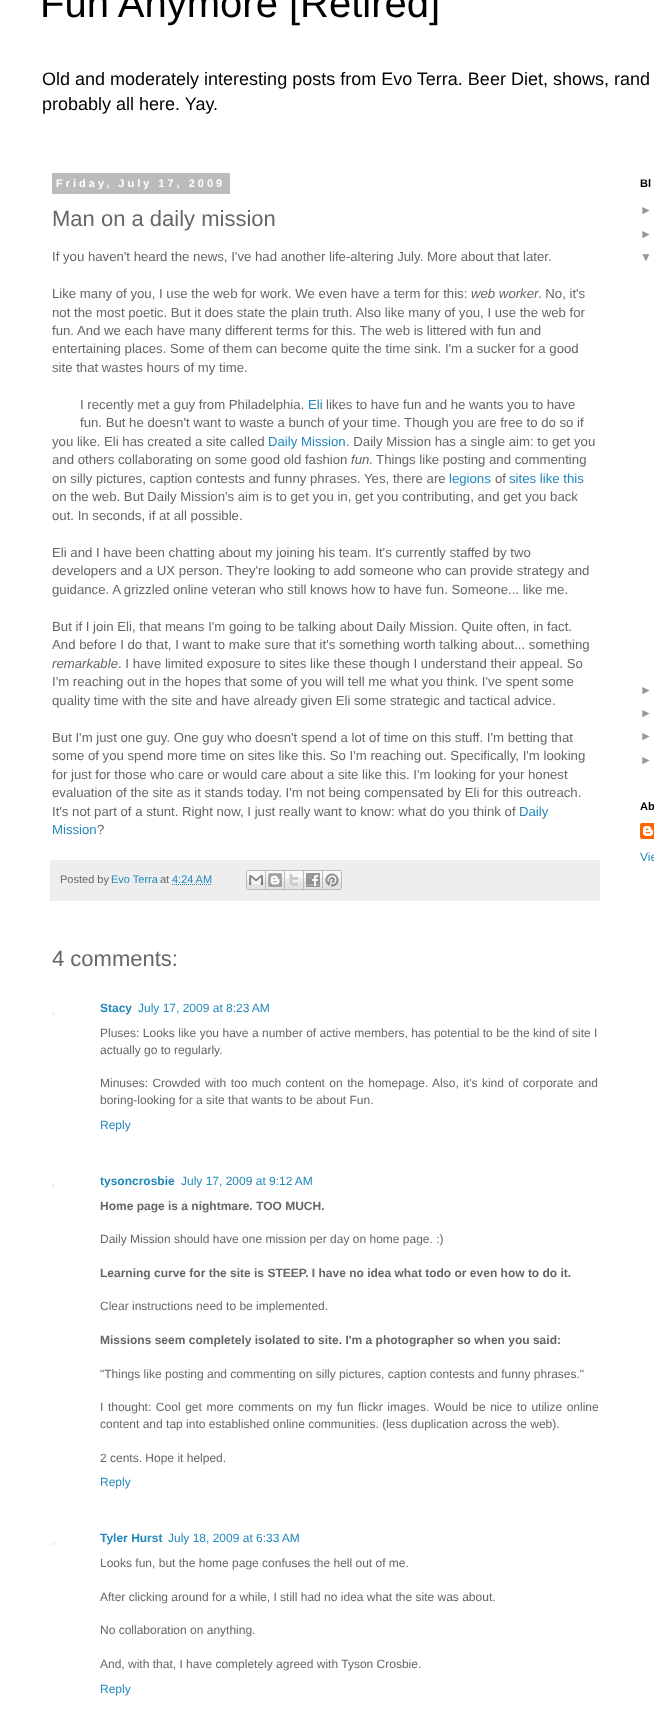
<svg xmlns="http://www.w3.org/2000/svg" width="654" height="1714">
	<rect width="100%" height="100%" fill="#FFFFFF" />
	<text x="40" y="17" font-family="Liberation Sans" font-size="40" fill="#000000">Fun Anymore [Retired]</text>
	<g font-family="Liberation Sans" font-size="18" fill="#000000">
		<text x="42" y="85">Old and moderately interesting posts from Evo Terra. Beer Diet, shows, rand</text>
		<text x="42" y="110">probably all here. Yay.</text>
	</g>
	<rect x="52" y="173" width="178" height="21" fill="#BBBBBB" />
	<text x="56" y="187" font-family="Liberation Sans" font-size="11" font-weight="700" letter-spacing="3" fill="#FFFFFF">Friday, July 17, 2009</text>
	<text x="52" y="226" font-family="Liberation Sans" font-size="22" fill="#666666">Man on a daily mission</text>
	<g font-family="Liberation Sans" font-size="13.2" fill="#666666">
		<text x="52" y="261">If you haven't heard the news, I've had another life-altering July. More about that later.</text>
		<text x="52" y="298">Like many of you, I use the web for work. We even have a term for this:</text>
	</g>
	<text x="471" y="298" font-family="Liberation Sans" font-size="13.2" font-style="italic" fill="#666666">web worker</text>
	<g font-family="Liberation Sans" font-size="13.2" fill="#666666">
		<text x="538" y="298">. No, it's</text>
		<text x="52" y="317">not the most poetic. But it does state the plain truth. Also like many of you, I use the web for</text>
		<text x="52" y="335">fun. And we each have many different terms for this. The web is littered with fun and</text>
		<text x="52" y="353">entertaining places. Some of them can become quite the time sink. I'm a sucker for a good</text>
		<text x="52" y="372">site that wastes hours of my time.</text>
		<text x="80" y="409">I recently met a guy from Philadelphia.</text>
	</g>
	<text x="308" y="409" font-family="Liberation Sans" font-size="13.2" fill="#2288BB">Eli</text>
	<g font-family="Liberation Sans" font-size="13.2" fill="#666666">
		<text x="326" y="409">likes to have fun and he wants you to have</text>
		<text x="80" y="427">fun. But he doesn't want to waste a bunch of your time. Though you are free to do so if</text>
		<text x="52" y="446">you like. Eli has created a site called</text>
	</g>
	<text x="268" y="446" font-family="Liberation Sans" font-size="13.2" fill="#2288BB">Daily Mission</text>
	<g font-family="Liberation Sans" font-size="13.2" fill="#666666">
		<text x="346" y="446">. Daily Mission has a single aim: to get you</text>
		<text x="52" y="464">and others collaborating on some good old fashion</text>
	</g>
	<text x="351" y="464" font-family="Liberation Sans" font-size="13.2" font-style="italic" fill="#666666">fun</text>
	<g font-family="Liberation Sans" font-size="13.2" fill="#666666">
		<text x="369" y="464">. Things like posting and commenting</text>
		<text x="52" y="483">on silly pictures, caption contests and funny phrases. Yes, there are</text>
	</g>
	<text x="449" y="483" font-family="Liberation Sans" font-size="13.2" fill="#2288BB">legions</text>
	<text x="495" y="483" font-family="Liberation Sans" font-size="13.2" fill="#666666">of</text>
	<text x="509" y="483" font-family="Liberation Sans" font-size="13.2" fill="#2288BB">sites like this</text>
	<g font-family="Liberation Sans" font-size="13.2" fill="#666666">
		<text x="52" y="501">on the web. But Daily Mission's aim is to get you in, get you contributing, and get you back</text>
		<text x="52" y="520">out. In seconds, if at all possible.</text>
		<text x="52" y="557">Eli and I have been chatting about my joining his team. It's currently staffed by two</text>
		<text x="52" y="575">developers and a UX person. They're looking to add someone who can provide strategy and</text>
		<text x="52" y="594">guidance. A grizzled online veteran who still knows how to have fun. Someone... like me.</text>
		<text x="52" y="631">But if I join Eli, that means I'm going to be talking about Daily Mission. Quite often, in fact.</text>
		<text x="52" y="649">And before I do that, I want to make sure that it's something worth talking about... something</text>
	</g>
	<text x="52" y="668" font-family="Liberation Sans" font-size="13.2" font-style="italic" fill="#666666">remarkable</text>
	<g font-family="Liberation Sans" font-size="13.2" fill="#666666">
		<text x="118" y="668">. I have limited exposure to sites like these though I understand their appeal. So</text>
		<text x="52" y="686">I'm reaching out in the hopes that some of you will tell me what you think. I've spent some</text>
		<text x="52" y="705">quality time with the site and have already given Eli some strategic and tactical advice.</text>
		<text x="52" y="742">But I'm just one guy. One guy who doesn't spend a lot of time on this stuff. I'm betting that</text>
		<text x="52" y="760">some of you spend more time on sites like this. So I'm reaching out. Specifically, I'm looking</text>
		<text x="52" y="779">for just for those who care or would care about a site like this. I'm looking for your honest</text>
		<text x="52" y="797">evaluation of the site as it stands today. I'm not being compensated by Eli for this outreach.</text>
		<text x="52" y="816">It's not part of a stunt. Right now, I just really want to know: what do you think of</text>
	</g>
	<g font-family="Liberation Sans" font-size="13.2" fill="#2288BB">
		<text x="519" y="816">Daily</text>
		<text x="52" y="834">Mission</text>
	</g>
	<text x="97" y="834" font-family="Liberation Sans" font-size="13.2" fill="#666666">?</text>
	<rect x="50" y="860" width="550" height="41" fill="#EEEEEE" />
	<text x="60" y="883" font-family="Liberation Sans" font-size="11" fill="#666666">Posted by</text>
	<text x="111" y="883" font-family="Liberation Sans" font-size="11" fill="#2288BB">Evo Terra</text>
	<text x="160" y="883" font-family="Liberation Sans" font-size="11" fill="#666666">at</text>
	<text x="172" y="883" font-family="Liberation Sans" font-size="11" fill="#2288BB">4:24 AM</text>
	<path d="M172 884.5H211.5" fill="none" stroke="#2288BB" stroke-dasharray="1 1" />
	<image x="246" y="870" width="20" height="20" href="assets/img1.png" />
	<image x="266" y="870" width="19" height="20" href="assets/img2.png" />
	<image x="285" y="870" width="19" height="20" href="assets/img3.png" />
	<image x="304" y="870" width="19" height="20" href="assets/img4.png" />
	<image x="323" y="870" width="19" height="20" href="assets/img5.png" />
	<text x="52" y="966" font-family="Liberation Sans" font-size="22" fill="#666666">4 comments:</text>
	<rect x="52.5" y="1012.5" width="2" height="2" fill="none" stroke="#EEEEEE" />
	<text x="100" y="1012" font-family="Liberation Sans" font-size="12" font-weight="700" fill="#2288BB">Stacy</text>
	<text x="138" y="1012" font-family="Liberation Sans" font-size="12" fill="#2288BB">July 17, 2009 at 8:23 AM</text>
	<g font-family="Liberation Sans" font-size="12" fill="#666666">
		<text x="100" y="1037" word-spacing="0.1">Pluses: Looks like you have a number of active members, has potential to be the kind of site I</text>
		<text x="100" y="1054">actually go to regularly.</text>
		<text x="100" y="1087" word-spacing="1.1">Minuses: Crowded with too much content on the homepage. Also, it's kind of corporate and</text>
		<text x="100" y="1104">boring-looking for a site that wants to be about Fun.</text>
	</g>
	<text x="100" y="1129" font-family="Liberation Sans" font-size="12" fill="#2288BB">Reply</text>
	<rect x="52.5" y="1184.5" width="2" height="2" fill="none" stroke="#EEEEEE" />
	<text x="100" y="1185" font-family="Liberation Sans" font-size="12" font-weight="700" fill="#2288BB">tysoncrosbie</text>
	<text x="181" y="1185" font-family="Liberation Sans" font-size="12" fill="#2288BB">July 17, 2009 at 9:12 AM</text>
	<text x="100" y="1210" font-family="Liberation Sans" font-size="12" font-weight="700" fill="#666666">Home page is a nightmare. TOO MUCH.</text>
	<text x="100" y="1243" font-family="Liberation Sans" font-size="12" fill="#666666">Daily Mission should have one mission per day on home page. :)</text>
	<text x="100" y="1277" font-family="Liberation Sans" font-size="12" font-weight="700" fill="#666666">Learning curve for the site is STEEP. I have no idea what todo or even how to do it.</text>
	<text x="100" y="1310" font-family="Liberation Sans" font-size="12" fill="#666666">Clear instructions need to be implemented.</text>
	<text x="100" y="1344" font-family="Liberation Sans" font-size="12" font-weight="700" fill="#666666">Missions seem completely isolated to site. I'm a photographer so when you said:</text>
	<g font-family="Liberation Sans" font-size="12" fill="#666666">
		<text x="100" y="1378">"Things like posting and commenting on silly pictures, caption contests and funny phrases."</text>
		<text x="100" y="1411" word-spacing="1.25">I thought: Cool get more comments on my fun flickr images. Would be nice to utilize online</text>
		<text x="100" y="1428">content and tap into established online communities. (less duplication across the web).</text>
		<text x="100" y="1462">2 cents. Hope it helped.</text>
	</g>
	<text x="100" y="1486" font-family="Liberation Sans" font-size="12" fill="#2288BB">Reply</text>
	<rect x="52.5" y="1542.5" width="2" height="2" fill="none" stroke="#EEEEEE" />
	<text x="100" y="1542" font-family="Liberation Sans" font-size="12" font-weight="700" fill="#2288BB">Tyler Hurst</text>
	<text x="168" y="1542" font-family="Liberation Sans" font-size="12" fill="#2288BB">July 18, 2009 at 6:33 AM</text>
	<g font-family="Liberation Sans" font-size="12" fill="#666666">
		<text x="100" y="1567">Looks fun, but the home page confuses the hell out of me.</text>
		<text x="100" y="1601">After clicking around for a while, I still had no idea what the site was about.</text>
		<text x="100" y="1634">No collaboration on anything.</text>
		<text x="100" y="1668">And, with that, I have completely agreed with Tyson Crosbie.</text>
	</g>
	<text x="100" y="1693" font-family="Liberation Sans" font-size="12" fill="#2288BB">Reply</text>
	<text x="640" y="187" font-family="Liberation Sans" font-size="11" font-weight="700" fill="#000000">Bl</text>
	<g font-family="Liberation Sans" font-size="12" fill="#999999">
		<text x="640" y="214">►</text>
		<text x="640" y="238">►</text>
		<text x="640" y="261">▼</text>
		<text x="640" y="694">►</text>
		<text x="640" y="717">►</text>
		<text x="640" y="740">►</text>
		<text x="640" y="764">►</text>
	</g>
	<text x="640" y="810" font-family="Liberation Sans" font-size="11" font-weight="700" fill="#000000">Ab</text>
	<image x="640" y="823" width="14" height="16" href="assets/img6.png" />
	<text x="640" y="861" font-family="Liberation Sans" font-size="12" fill="#2288BB">Vie</text>
</svg>
